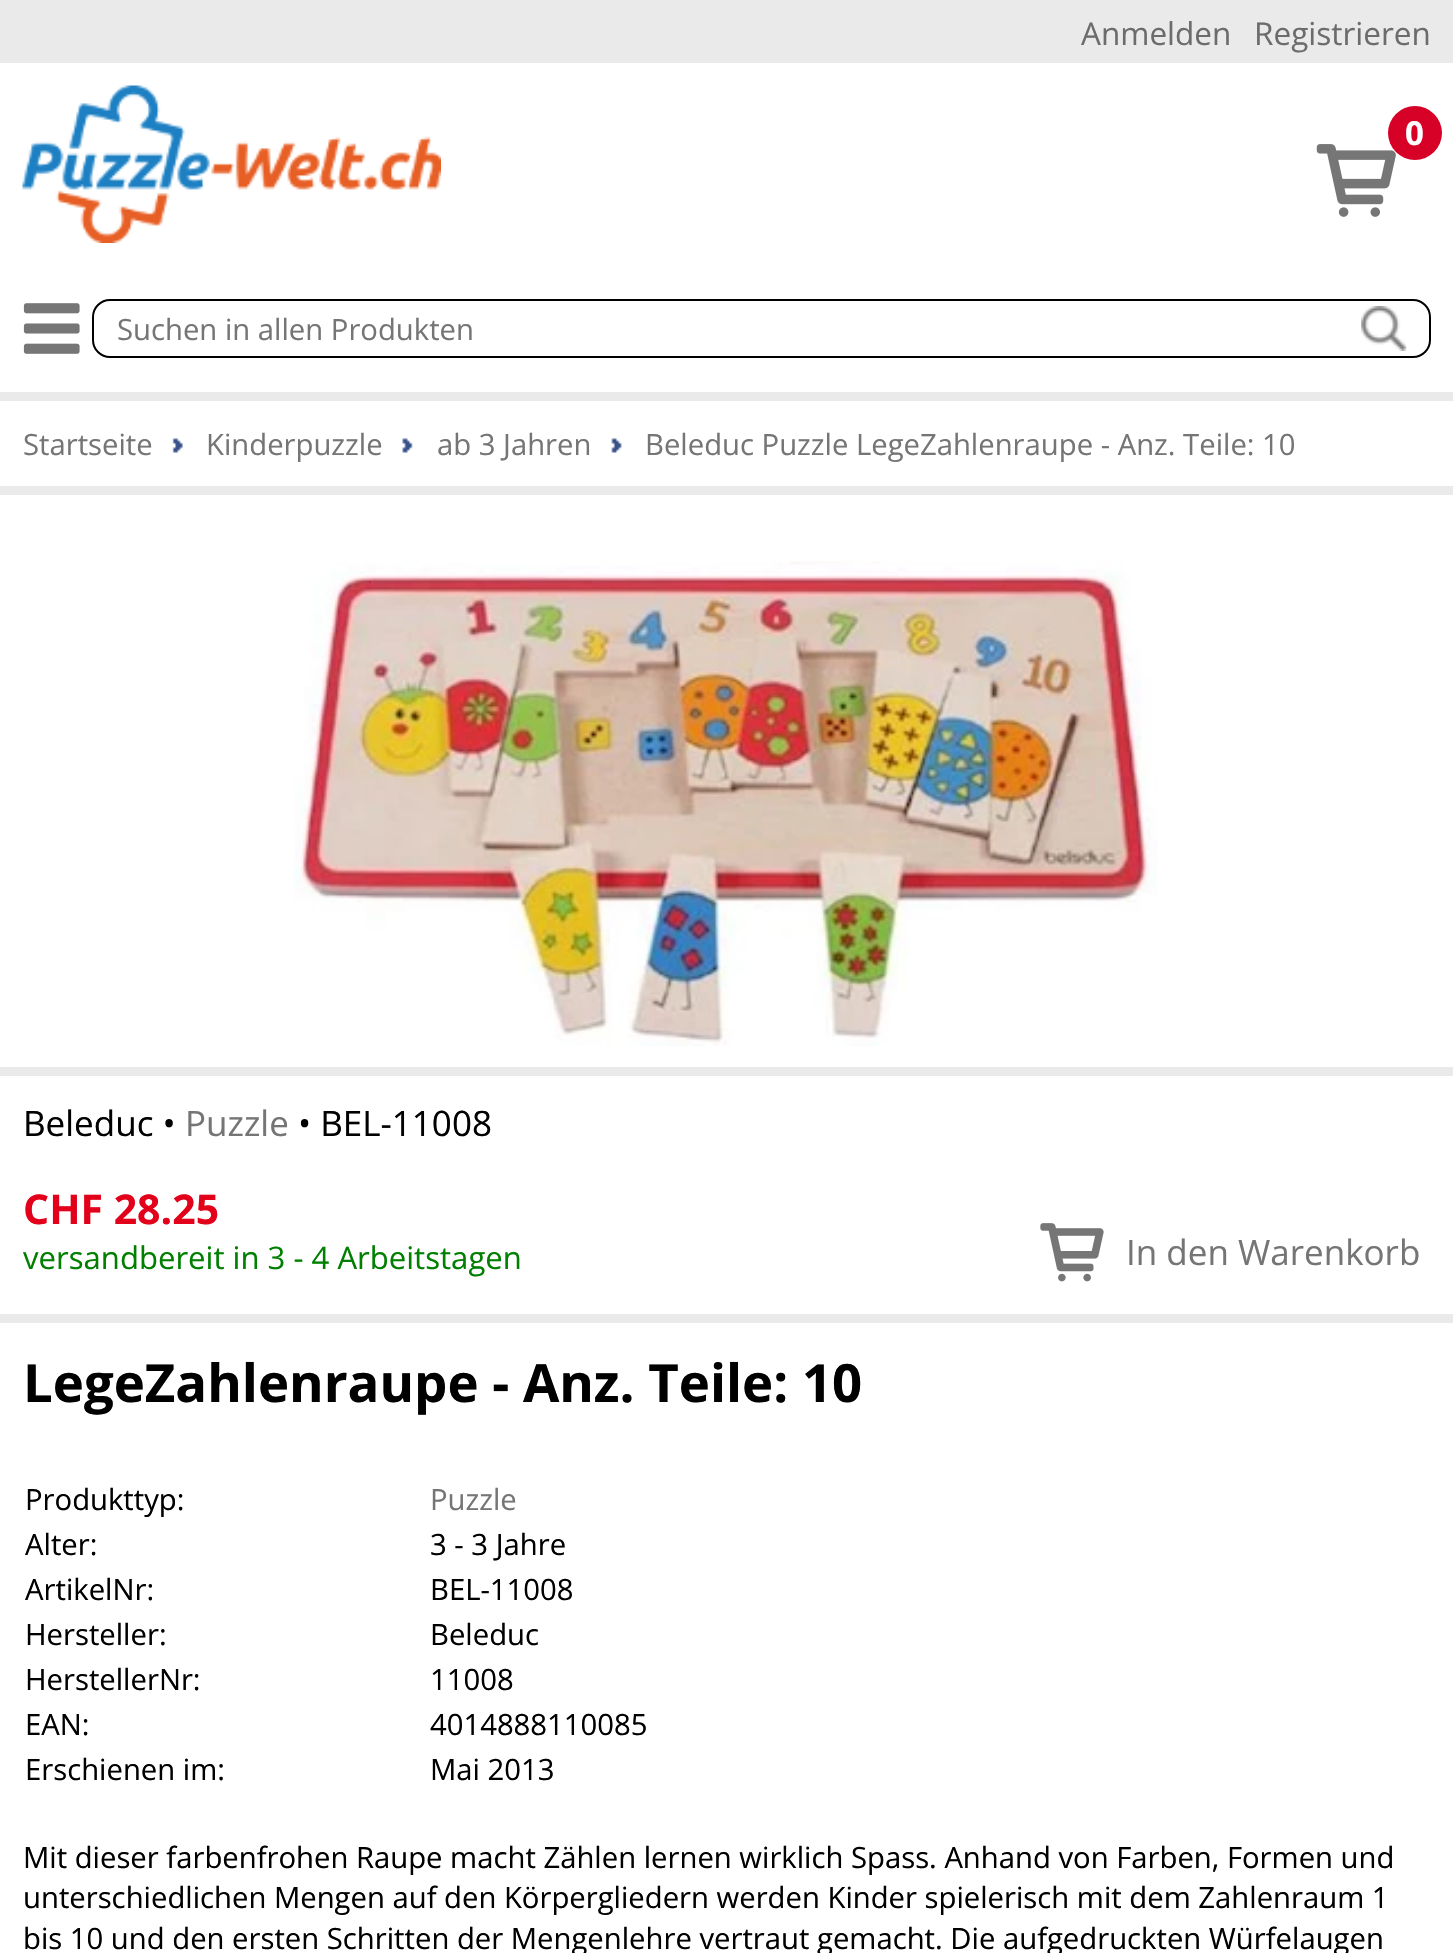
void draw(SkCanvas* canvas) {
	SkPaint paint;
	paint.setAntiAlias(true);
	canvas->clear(0xffeaeaea);
	SkFont f1(fontMgr->matchFamilyStyle("Open Sans", SkFontStyle::Normal()), 31.5);
	f1.setSubpixel(true);
	paint.setColor(0xff6c6c6c);
	canvas->drawString("Anmelden", 1081, 45, f1, paint);
	canvas->drawString("Registrieren", 1254, 45, f1, paint);
	paint.setColor(0xffffffff);
	canvas->drawRect(SkRect::MakeXYWH(0, 63, 1453, 329), paint);
	canvas->drawImageRect(SkImages::DeferredFromEncodedData(SkData::MakeFromFileName("img1.png")), SkRect::MakeXYWH(22, 85, 419, 158), SkSamplingOptions());
	canvas->drawImageRect(SkImages::DeferredFromEncodedData(SkData::MakeFromFileName("img2.png")), SkRect::MakeXYWH(1316, 144, 80, 73), SkSamplingOptions());
	paint.setColor(0xffd70026);
	canvas->drawCircle(1415, 133, 27, paint);
	SkFont f2(fontMgr->matchFamilyStyle("Open Sans", SkFontStyle::Bold()), 33);
	f2.setSubpixel(true);
	paint.setColor(0xffffffff);
	canvas->drawString("0", 1405, 145, f2, paint);
	canvas->drawImageRect(SkImages::DeferredFromEncodedData(SkData::MakeFromFileName("img3.png")), SkRect::MakeXYWH(23, 303, 57, 51), SkSamplingOptions());
	paint.setStroke(true);
	paint.setStrokeWidth(2);
	paint.setColor(0xff000000);
	canvas->drawRoundRect(SkRect::MakeXYWH(93, 300, 1337, 57), 17, 17, paint);
	SkFont f3(fontMgr->matchFamilyStyle("Open Sans", SkFontStyle::Normal()), 29.25);
	f3.setSubpixel(true);
	paint.setStroke(false);
	paint.setColor(0xff757575);
	canvas->drawString("Suchen in allen Produkten", 117, 340, f3, paint);
	canvas->drawImageRect(SkImages::DeferredFromEncodedData(SkData::MakeFromFileName("img4.png")), SkRect::MakeXYWH(1361, 306, 46, 45), SkSamplingOptions());
	paint.setColor(0xffffffff);
	canvas->drawRect(SkRect::MakeXYWH(0, 401, 1453, 85), paint);
	paint.setColor(0xff757575);
	canvas->drawString("Startseite", 23, 455, f3, paint);
	canvas->drawImageRect(SkImages::DeferredFromEncodedData(SkData::MakeFromFileName("img5.png")), SkRect::MakeXYWH(172, 438, 11, 15), SkSamplingOptions());
	canvas->drawString("Kinderpuzzle", 206, 455, f3, paint);
	canvas->drawImageRect(SkImages::DeferredFromEncodedData(SkData::MakeFromFileName("img6.png")), SkRect::MakeXYWH(402, 438, 11, 15), SkSamplingOptions());
	canvas->drawString("ab 3 Jahren", 437, 455, f3, paint);
	canvas->drawImageRect(SkImages::DeferredFromEncodedData(SkData::MakeFromFileName("img7.png")), SkRect::MakeXYWH(611, 438, 11, 15), SkSamplingOptions());
	canvas->drawString("Beleduc Puzzle LegeZahlenraupe - Anz. Teile: 10", 645, 455, f3, paint);
	paint.setColor(0xffffffff);
	canvas->drawRect(SkRect::MakeXYWH(0, 495, 1453, 572), paint);
	canvas->drawImageRect(SkImages::DeferredFromEncodedData(SkData::MakeFromFileName("img8.png")), SkRect::MakeXYWH(294, 561, 864, 485), SkSamplingOptions());
	canvas->drawRect(SkRect::MakeXYWH(0, 1076, 1453, 238), paint);
	SkFont f4(fontMgr->matchFamilyStyle("Open Sans", SkFontStyle::Normal()), 35);
	f4.setSubpixel(true);
	paint.setColor(0xff000000);
	canvas->drawString("Beleduc •", 23, 1136, f4, paint);
	paint.setColor(0xff757575);
	canvas->drawString("Puzzle", 185, 1136, f4, paint);
	paint.setColor(0xff000000);
	canvas->drawString("• BEL-11008", 298, 1136, f4, paint);
	SkFont f5(fontMgr->matchFamilyStyle("Open Sans", SkFontStyle::Bold()), 41);
	f5.setSubpixel(true);
	paint.setColor(0xffe2001a);
	canvas->drawString("CHF 28.25", 23, 1224, f5, paint);
	SkFont f6(fontMgr->matchFamilyStyle("Open Sans", SkFontStyle::Normal()), 31.1);
	f6.setSubpixel(true);
	paint.setColor(0xff007f00);
	canvas->drawString("versandbereit in 3 - 4 Arbeitstagen", 23, 1269, f6, paint);
	canvas->drawImageRect(SkImages::DeferredFromEncodedData(SkData::MakeFromFileName("img9.png")), SkRect::MakeXYWH(1040, 1223, 64, 59), SkSamplingOptions());
	paint.setColor(0xff757575);
	canvas->drawString("In den Warenkorb", 1126, 1265, f4, paint);
	paint.setColor(0xffffffff);
	canvas->drawRect(SkRect::MakeXYWH(0, 1323, 1453, 630), paint);
	SkFont f7(fontMgr->matchFamilyStyle("Open Sans", SkFontStyle::Bold()), 52.7);
	f7.setSubpixel(true);
	paint.setColor(0xff000000);
	canvas->drawString("LegeZahlenraupe - Anz. Teile: 10", 23, 1402, f7, paint);
	canvas->drawString("Produkttyp:", 25, 1510, f3, paint);
	paint.setColor(0xff757575);
	canvas->drawString("Puzzle", 430, 1510, f3, paint);
	paint.setColor(0xff000000);
	canvas->drawString("Alter:", 25, 1555, f3, paint);
	canvas->drawString("3 - 3 Jahre", 430, 1555, f3, paint);
	canvas->drawString("ArtikelNr:", 25, 1600, f3, paint);
	canvas->drawString("BEL-11008", 430, 1600, f3, paint);
	canvas->drawString("Hersteller:", 25, 1645, f3, paint);
	canvas->drawString("Beleduc", 430, 1645, f3, paint);
	canvas->drawString("HerstellerNr:", 25, 1690, f3, paint);
	canvas->drawString("11008", 430, 1690, f3, paint);
	canvas->drawString("EAN:", 25, 1735, f3, paint);
	canvas->drawString("4014888110085", 430, 1735, f3, paint);
	canvas->drawString("Erschienen im:", 25, 1780, f3, paint);
	canvas->drawString("Mai 2013", 430, 1780, f3, paint);
	canvas->drawString("Mit dieser farbenfrohen Raupe macht Zählen lernen wirklich Spass. Anhand von Farben, Formen und", 23, 1868, f3, paint);
	canvas->drawString("unterschiedlichen Mengen auf den Körpergliedern werden Kinder spielerisch mit dem Zahlenraum 1", 23, 1908, f3, paint);
	canvas->drawString("bis 10 und den ersten Schritten der Mengenlehre vertraut gemacht. Die aufgedruckten Würfelaugen", 23, 1949, f3, paint);
}
